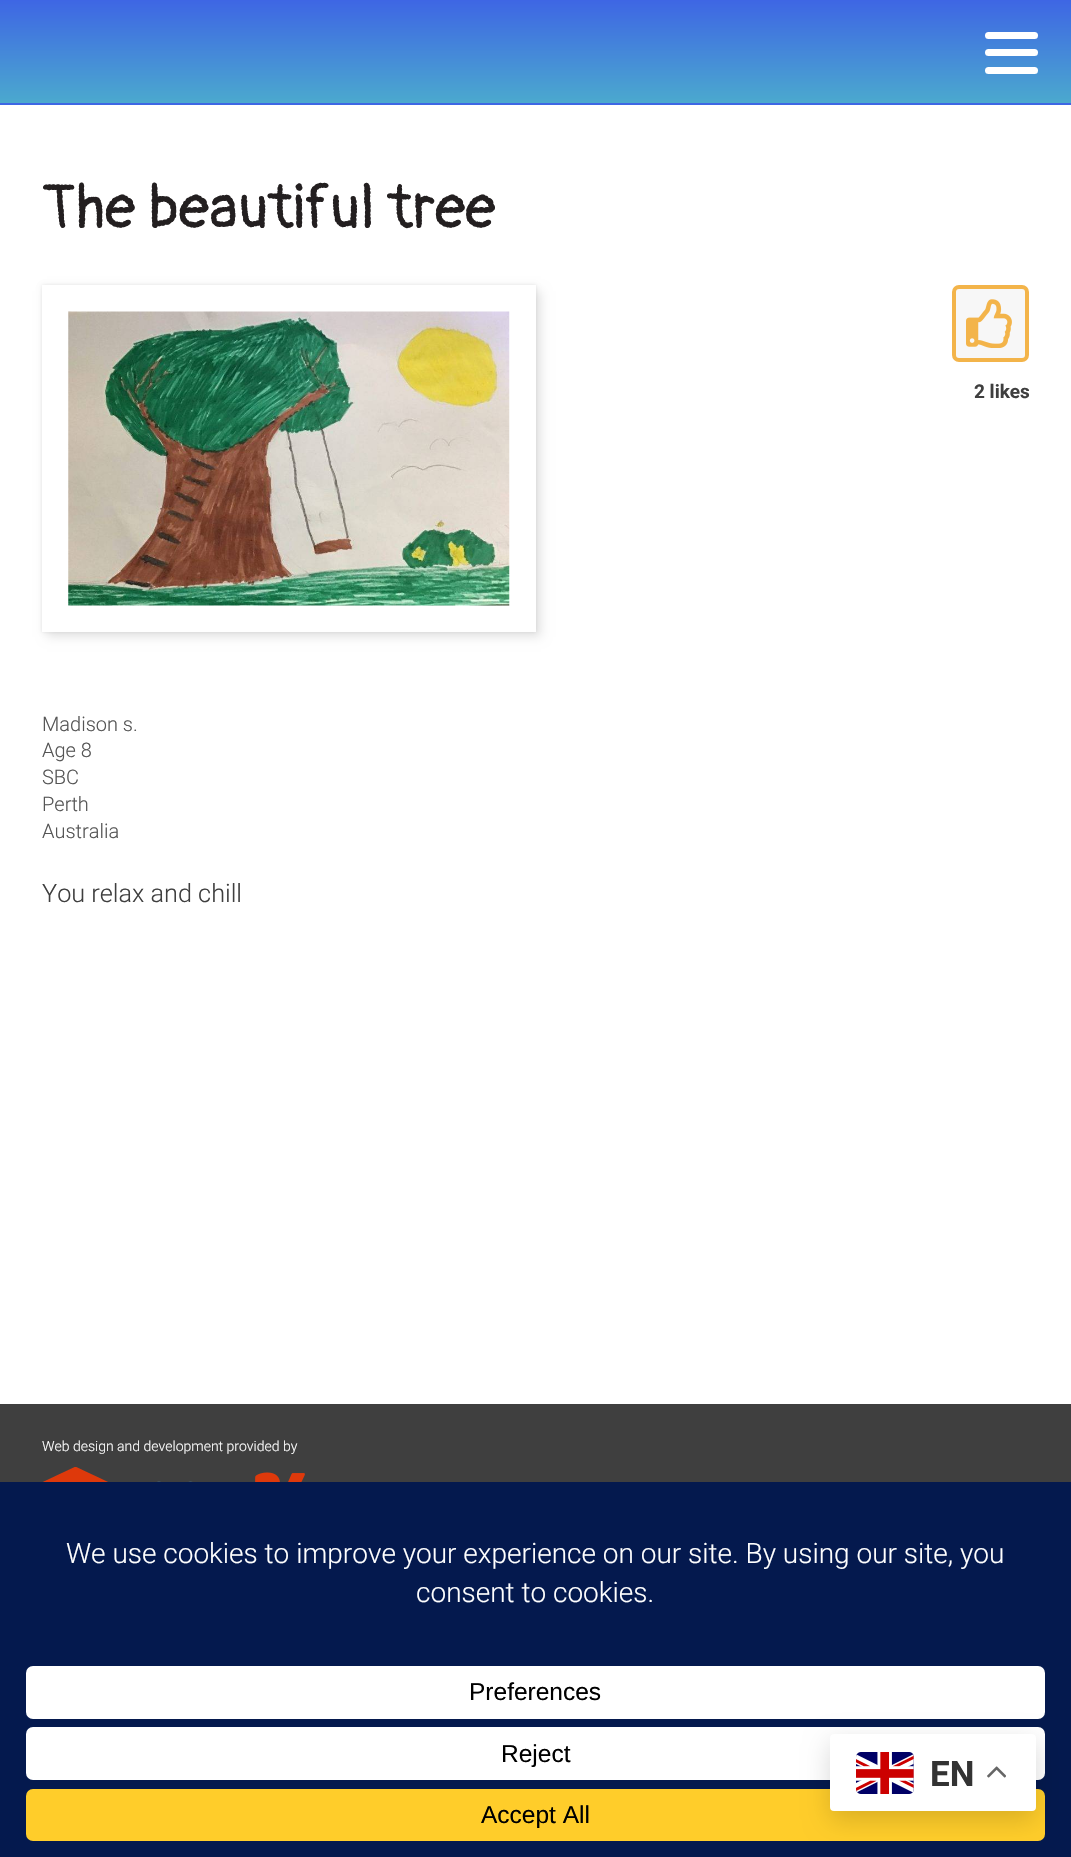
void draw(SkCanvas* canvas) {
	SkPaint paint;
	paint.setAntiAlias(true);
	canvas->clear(0xffffffff);
	{
		const SkColor colors[] = {0xff3e66e4, 0xff4ba9ce};
		const float stops[] = {0, 1};
		const SkPoint ends[] = {{536, 0}, {536, 103}};
		paint.setShader(SkGradientShader::MakeLinear(ends, colors, stops, 2, SkTileMode::kClamp));
		paint.setAlpha(255);
	}
	canvas->drawRect(SkRect::MakeXYWH(0, 0, 1071, 103), paint);
	{
		const SkColor colors[] = {0xff3e66e4, 0xff4ba9ce};
		const float stops[] = {0, 1};
		const SkPoint ends[] = {{536, 103}, {536, 207}};
		paint.setShader(SkGradientShader::MakeLinear(ends, colors, stops, 2, SkTileMode::kClamp));
		paint.setAlpha(255);
	}
	canvas->drawRect(SkRect::MakeXYWH(0, 103, 1071, 2), paint);
	paint.setShader(nullptr);
	paint.setColor(0xffffffff);
	canvas->drawRoundRect(SkRect::MakeXYWH(985, 67, 53, 7), 3.5, 3.5, paint);
	canvas->drawRoundRect(SkRect::MakeXYWH(985, 32, 53, 7), 3.5, 3.5, paint);
	canvas->drawRoundRect(SkRect::MakeXYWH(985, 49, 53, 7), 3.5, 3.5, paint);
	SkFont f1(fontMgr->matchFamilyStyle("Pangolin", SkFontStyle::Normal()), 61.5);
	f1.setSubpixel(true);
	paint.setColor(0xff231f20);
	canvas->drawString("The beautiful tree", 42, 228, f1, paint);
	paint.setColor(0x1a000000);
	paint.setMaskFilter(SkMaskFilter::MakeBlur(kNormal_SkBlurStyle, 5));
	canvas->drawRect(SkRect::MakeXYWH(47, 291, 494, 346), paint);
	paint.setMaskFilter(nullptr);
	paint.setMaskFilter(SkMaskFilter::MakeBlur(kNormal_SkBlurStyle, 2));
	canvas->drawRect(SkRect::MakeXYWH(42, 285, 494, 347), paint);
	paint.setMaskFilter(nullptr);
	paint.setColor(0xffffffff);
	canvas->drawRect(SkRect::MakeXYWH(42, 285, 494, 347), paint);
	canvas->drawImageRect(SkImages::DeferredFromEncodedData(SkData::MakeFromFileName("img1.png")), SkRect::MakeXYWH(68, 311, 442, 295), SkSamplingOptions());
	paint.setColor(0xfff7f7f7);
	canvas->drawRoundRect(SkRect::MakeXYWH(954, 287, 73, 73), 5, 5, paint);
	paint.setStroke(true);
	paint.setStrokeWidth(4);
	paint.setColor(0xfff3b44a);
	canvas->drawRoundRect(SkRect::MakeXYWH(954, 287, 73, 73), 5, 5, paint);
	canvas->drawImageRect(SkImages::DeferredFromEncodedData(SkData::MakeFromFileName("img2.png")), SkRect::MakeXYWH(966, 299, 46, 49), SkSamplingOptions());
	SkFont f2(fontMgr->matchFamilyStyle("Roboto", SkFontStyle::Bold()), 19);
	f2.setSubpixel(true);
	paint.setStroke(false);
	paint.setColor(0xff3f3f3f);
	canvas->drawString("2 likes", 974, 398, f2, paint);
	SkFont f3(fontMgr->matchFamilyStyle("Roboto", SkFontStyle(300, SkFontStyle::kNormal_Width, SkFontStyle::kUpright_Slant)), 20);
	f3.setSubpixel(true);
	paint.setColor(0xff555555);
	canvas->drawString("Madison s.", 42, 731, f3, paint);
	canvas->drawString("Age 8", 42, 757, f3, paint);
	canvas->drawString("SBC", 42, 784, f3, paint);
	canvas->drawString("Perth", 42, 811, f3, paint);
	canvas->drawString("Australia", 42, 838, f3, paint);
	SkFont f4(fontMgr->matchFamilyStyle("Roboto", SkFontStyle(300, SkFontStyle::kNormal_Width, SkFontStyle::kUpright_Slant)), 25.25);
	f4.setSubpixel(true);
	paint.setColor(0xff3f3f3f);
	canvas->drawString("You relax and chill", 42, 902, f4, paint);
	canvas->drawRect(SkRect::MakeXYWH(0, 1404, 1071, 78), paint);
	SkFont f5(fontMgr->matchFamilyStyle("Roboto", SkFontStyle(300, SkFontStyle::kNormal_Width, SkFontStyle::kUpright_Slant)), 14);
	f5.setSubpixel(true);
	paint.setColor(0xffffffff);
	canvas->drawString("Web design and development provided by", 42, 1451, f5, paint);
	canvas->drawImageRect(SkImages::DeferredFromEncodedData(SkData::MakeFromFileName("img3.png")), SkRect::MakeXYWH(42, 1467, 263, 15), SkSamplingOptions());
	paint.setColor(0xff04194e);
	canvas->drawRect(SkRect::MakeXYWH(0, 1482, 1071, 375), paint);
	SkFont f6(fontMgr->matchFamilyStyle("Roboto", SkFontStyle(300, SkFontStyle::kNormal_Width, SkFontStyle::kUpright_Slant)), 28);
	f6.setSubpixel(true);
	paint.setColor(0xffffffff);
	canvas->drawString("We use cookies to improve your experience on our site. By using our site, you", 66, 1563, f6, paint);
	canvas->drawString("consent to cookies.", 416, 1602, f6, paint);
	canvas->drawRoundRect(SkRect::MakeXYWH(26, 1666, 1019, 53), 7, 7, paint);
	SkFont f7(fontMgr->matchFamilyStyle("Liberation Sans", SkFontStyle::Normal()), 24.5);
	f7.setSubpixel(true);
	paint.setColor(0xff000000);
	canvas->drawString("Preferences", 469, 1700, f7, paint);
	paint.setColor(0xffffffff);
	canvas->drawRoundRect(SkRect::MakeXYWH(26, 1727, 1019, 53), 7, 7, paint);
	paint.setColor(0xff000000);
	canvas->drawString("Reject", 501, 1762, f7, paint);
	paint.setColor(0xffffcd2a);
	canvas->drawRoundRect(SkRect::MakeXYWH(26, 1789, 1019, 52), 7, 7, paint);
	paint.setColor(0xff000000);
	canvas->drawString("Accept All", 481, 1823, f7, paint);
	paint.setColor(0x26000000);
	paint.setMaskFilter(SkMaskFilter::MakeBlur(kNormal_SkBlurStyle, 13));
	canvas->drawRoundRect(SkRect::MakeXYWH(830, 1743, 206, 77), 4, 4, paint);
	paint.setMaskFilter(nullptr);
	paint.setColor(0xffffffff);
	canvas->drawRoundRect(SkRect::MakeXYWH(830, 1734, 206, 77), 4, 4, paint);
	canvas->drawImageRect(SkImages::DeferredFromEncodedData(SkData::MakeFromFileName("img4.png")), SkRect::MakeXYWH(856, 1752, 58, 42), SkSamplingOptions());
	SkFont f8(fontMgr->matchFamilyStyle("Roboto", SkFontStyle::Bold()), 35);
	f8.setSubpixel(true);
	paint.setColor(0xff333333);
	canvas->drawString("EN", 930, 1786, f8, paint);
	canvas->drawImageRect(SkImages::DeferredFromEncodedData(SkData::MakeFromFileName("img5.png")), SkRect::MakeXYWH(987, 1766, 19, 12), SkSamplingOptions());
}
